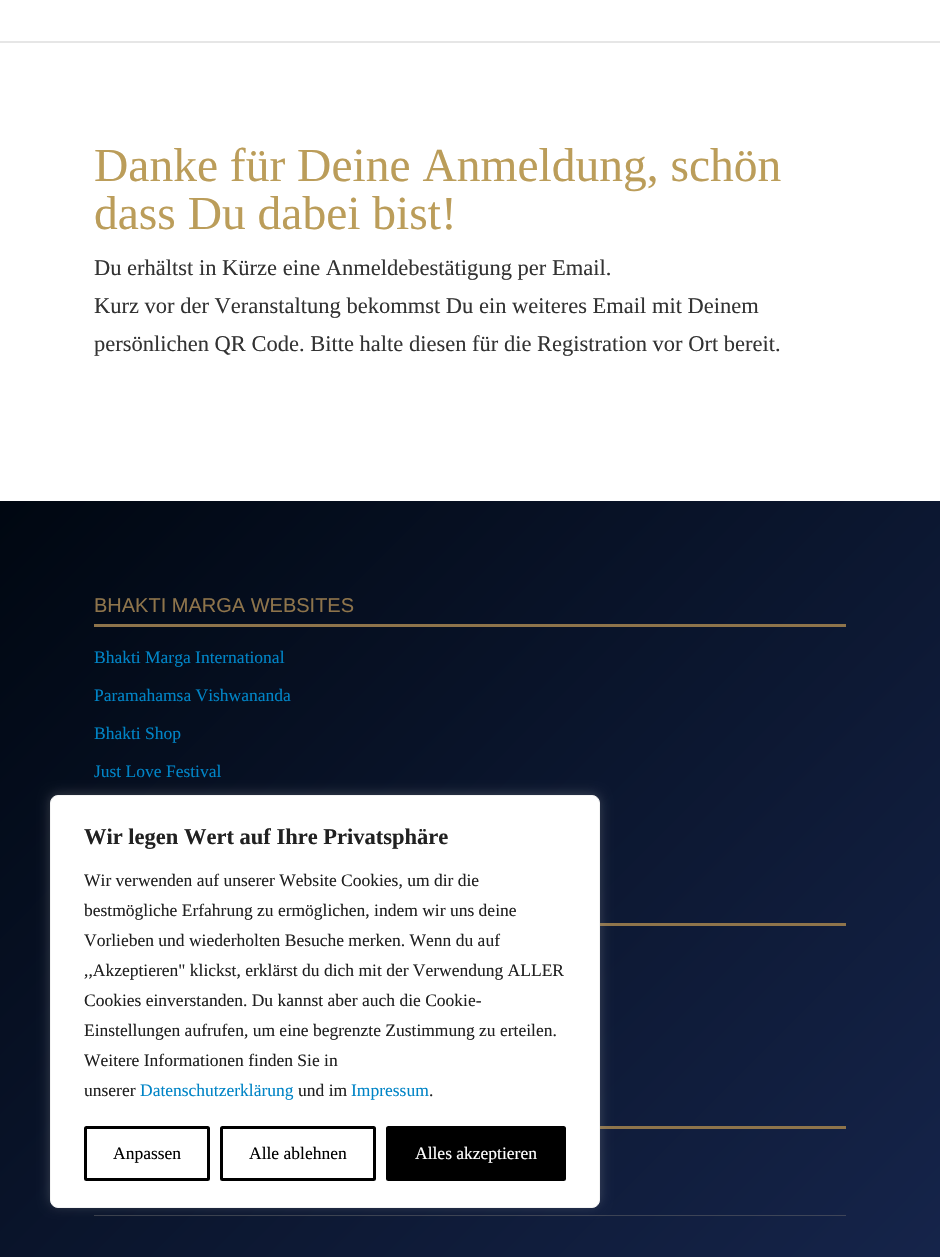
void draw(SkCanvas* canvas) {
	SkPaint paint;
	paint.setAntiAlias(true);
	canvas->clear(0xffffffff);
	paint.setColor(0xffe6e6e6);
	canvas->drawRect(SkRect::MakeXYWH(0, 41, 940, 2), paint);
	SkFont f1(fontMgr->matchFamilyStyle("Liberation Serif", SkFontStyle::Normal()), 47.5);
	f1.setSubpixel(true);
	paint.setColor(0xffbb9d5a);
	canvas->drawString("Danke für Deine Anmeldung, schön", 94, 181, f1, paint);
	canvas->drawString("dass Du dabei bist!", 94, 229, f1, paint);
	SkFont f2(fontMgr->matchFamilyStyle("Liberation Serif", SkFontStyle::Normal()), 22.5);
	f2.setSubpixel(true);
	paint.setColor(0xff333333);
	canvas->drawString("Du erhältst in Kürze eine Anmeldebestätigung per Email.", 94, 275, f2, paint);
	canvas->drawString("Kurz vor der Veranstaltung bekommst Du ein weiteres Email mit Deinem", 94, 313, f2, paint);
	canvas->drawString("persönlichen QR Code. Bitte halte diesen für die Registration vor Ort bereit.", 94, 351, f2, paint);
	{
		const SkColor colors[] = {0xff16254c, 0xff000711};
		const float stops[] = {0, 1};
		const SkPoint ends[] = {{908, 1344}, {32, 469}};
		paint.setShader(SkGradientShader::MakeLinear(ends, colors, stops, 2, SkTileMode::kClamp));
		paint.setAlpha(255);
	}
	canvas->drawRect(SkRect::MakeXYWH(0, 501, 940, 756), paint);
	{
		const SkColor colors[] = {0xff3f475c, 0xff33373c};
		const float stops[] = {0, 1};
		const SkPoint ends[] = {{908, 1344}, {32, 469}};
		paint.setShader(SkGradientShader::MakeLinear(ends, colors, stops, 2, SkTileMode::kClamp));
		paint.setAlpha(255);
	}
	canvas->drawRect(SkRect::MakeXYWH(94, 1215, 752, 1), paint);
	paint.setShader(nullptr);
	paint.setColor(0xff8e744b);
	canvas->drawRect(SkRect::MakeXYWH(94, 624, 752, 3), paint);
	SkFont f3(fontMgr->matchFamilyStyle("Liberation Sans", SkFontStyle::Normal()), 20);
	f3.setSubpixel(true);
	canvas->drawString("BHAKTI MARGA WEBSITES", 94, 612, f3, paint);
	SkFont f4(fontMgr->matchFamilyStyle("Liberation Serif", SkFontStyle::Normal()), 17.5);
	f4.setSubpixel(true);
	paint.setColor(0xff0084c6);
	canvas->drawString("Bhakti Marga International", 94, 663, f4, paint);
	canvas->drawString("Paramahamsa Vishwananda", 94, 701, f4, paint);
	canvas->drawString("Bhakti Shop", 94, 739, f4, paint);
	canvas->drawString("Just Love Festival", 94, 777, f4, paint);
	paint.setColor(0xff8e744b);
	canvas->drawRect(SkRect::MakeXYWH(600, 923, 246, 3), paint);
	canvas->drawRect(SkRect::MakeXYWH(600, 1126, 246, 3), paint);
	paint.setColor(0x4dacabab);
	paint.setMaskFilter(SkMaskFilter::MakeBlur(kNormal_SkBlurStyle, 6));
	canvas->drawRoundRect(SkRect::MakeXYWH(50, 794, 550, 412), 8, 8, paint);
	paint.setMaskFilter(nullptr);
	paint.setColor(0xffffffff);
	canvas->drawRoundRect(SkRect::MakeXYWH(50.5, 795.5, 549, 412), 7.5, 7.5, paint);
	paint.setStroke(true);
	paint.setStrokeWidth(1);
	paint.setColor(0xfff4f4f4);
	canvas->drawRoundRect(SkRect::MakeXYWH(50.5, 795.5, 549, 412), 7.5, 7.5, paint);
	SkFont f5(fontMgr->matchFamilyStyle("Liberation Serif", SkFontStyle::Bold()), 22.5);
	f5.setSubpixel(true);
	paint.setStroke(false);
	paint.setColor(0xff212121);
	canvas->drawString("Wir legen Wert auf Ihre Privatsphäre", 84, 844, f5, paint);
	canvas->drawString("Wir verwenden auf unserer Website Cookies, um dir die", 84, 886, f4, paint);
	canvas->drawString("bestmögliche Erfahrung zu ermöglichen, indem wir uns deine", 84, 916, f4, paint);
	canvas->drawString("Vorlieben und wiederholten Besuche merken. Wenn du auf", 84, 946, f4, paint);
	canvas->drawString(",,Akzeptieren\" klickst, erklärst du dich mit der Verwendung ALLER", 84, 976, f4, paint);
	canvas->drawString("Cookies einverstanden. Du kannst aber auch die Cookie-", 84, 1006, f4, paint);
	canvas->drawString("Einstellungen aufrufen, um eine begrenzte Zustimmung zu erteilen.", 84, 1036, f4, paint);
	canvas->drawString("Weitere Informationen finden Sie in", 84, 1066, f4, paint);
	canvas->drawString("unserer", 84, 1096, f4, paint);
	paint.setColor(0xff0084c6);
	canvas->drawString("Datenschutzerklärung", 140, 1096, f4, paint);
	paint.setColor(0xff212121);
	canvas->drawString("und im", 298, 1096, f4, paint);
	paint.setColor(0xff0084c6);
	canvas->drawString("Impressum", 351, 1096, f4, paint);
	paint.setColor(0xff212121);
	canvas->drawString(".", 429, 1096, f4, paint);
	paint.setStroke(true);
	paint.setStrokeWidth(3);
	paint.setColor(0xff000000);
	canvas->drawRoundRect(SkRect::MakeXYWH(85.5, 1127.5, 123, 52), 1, 1, paint);
	paint.setStroke(false);
	canvas->drawString("Anpassen", 113, 1159, f4, paint);
	paint.setStroke(true);
	canvas->drawRoundRect(SkRect::MakeXYWH(221.5, 1127.5, 153, 52), 1, 1, paint);
	paint.setStroke(false);
	canvas->drawString("Alle ablehnen", 249, 1159, f4, paint);
	canvas->drawRoundRect(SkRect::MakeXYWH(387.5, 1127.5, 177, 52), 1, 1, paint);
	paint.setStroke(true);
	canvas->drawRoundRect(SkRect::MakeXYWH(387.5, 1127.5, 177, 52), 1, 1, paint);
	paint.setStroke(false);
	paint.setColor(0xffffffff);
	canvas->drawString("Alles akzeptieren", 415, 1159, f4, paint);
}
